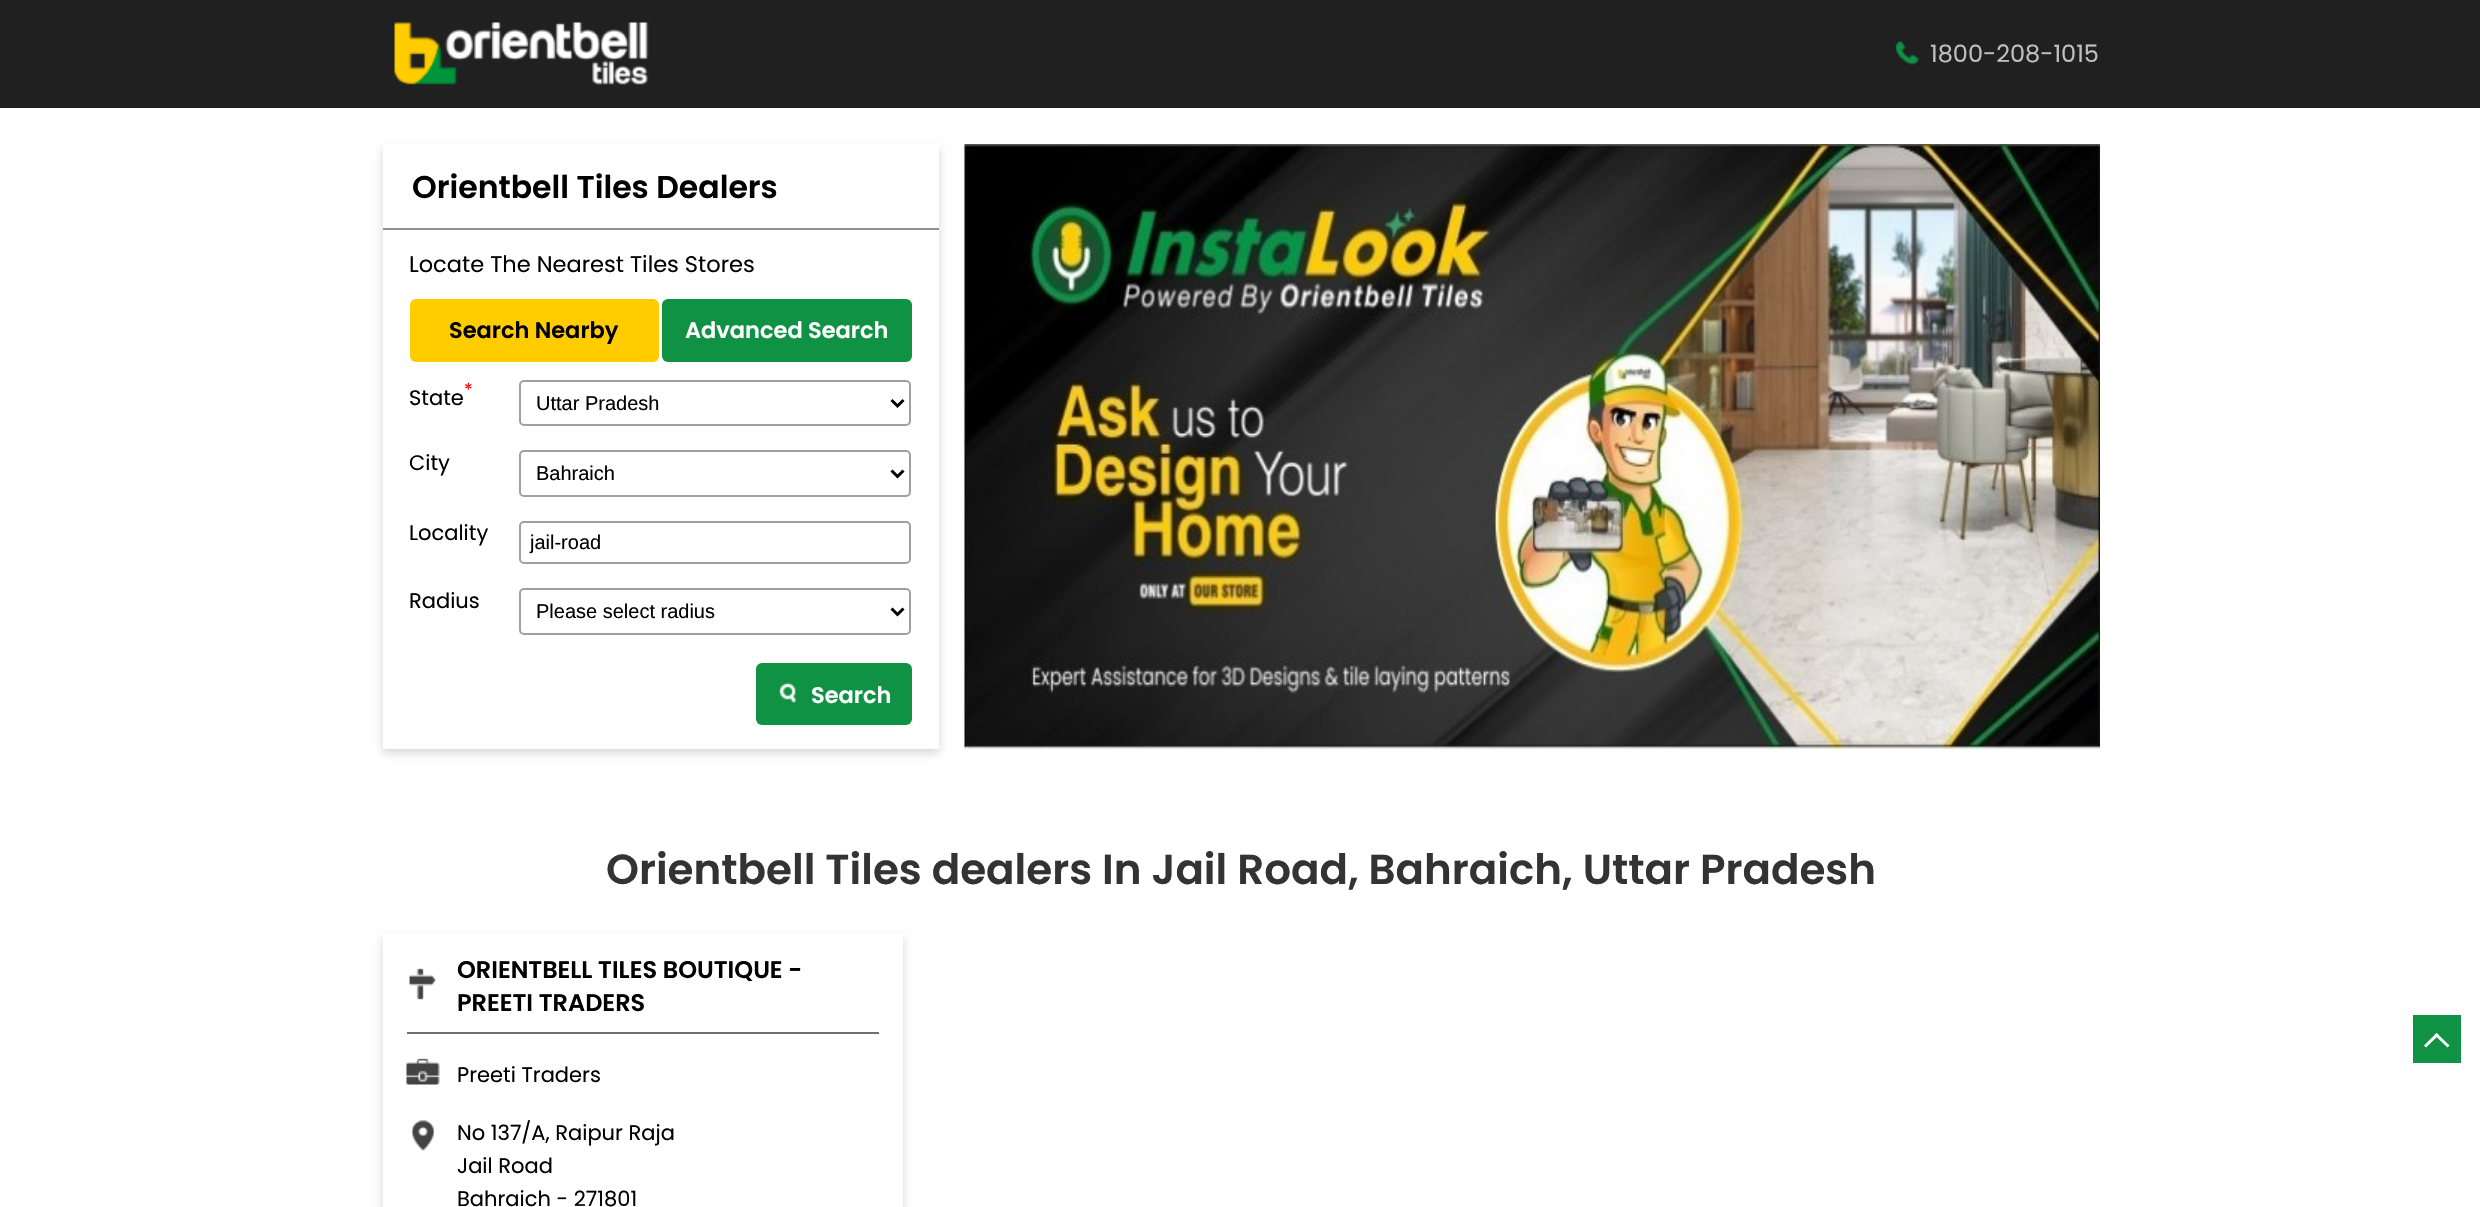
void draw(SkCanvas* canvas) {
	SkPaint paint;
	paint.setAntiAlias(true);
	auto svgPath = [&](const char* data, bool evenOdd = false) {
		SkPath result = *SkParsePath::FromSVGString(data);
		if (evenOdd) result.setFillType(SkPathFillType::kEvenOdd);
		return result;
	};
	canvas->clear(0xffffffff);
	paint.setColor(0xff202020);
	canvas->drawRect(SkRect::MakeXYWH(0, 0, 2480, 108), paint);
	canvas->drawImageRect(SkImages::DeferredFromEncodedData(SkData::MakeFromFileName("img1.png")), SkRect::MakeXYWH(394, 22, 255, 63), SkSamplingOptions());
	canvas->drawImageRect(SkImages::DeferredFromEncodedData(SkData::MakeFromFileName("img2.png")), SkRect::MakeXYWH(1895, 40, 24, 25), SkSamplingOptions());
	SkFont f1(fontMgr->matchFamilyStyle("Poppins", SkFontStyle::Normal()), 24);
	f1.setSubpixel(true);
	paint.setColor(0xffbfbfbf);
	canvas->drawString("1800-208-1015", 1930, 62, f1, paint);
	paint.setColor(0x29000000);
	paint.setMaskFilter(SkMaskFilter::MakeBlur(kNormal_SkBlurStyle, 4.5));
	canvas->drawRect(SkRect::MakeXYWH(383, 149, 556, 604), paint);
	paint.setMaskFilter(nullptr);
	paint.setColor(0xffffffff);
	canvas->drawRect(SkRect::MakeXYWH(383, 144, 556, 605), paint);
	paint.setColor(0xff8f8f8f);
	canvas->drawRect(SkRect::MakeXYWH(383, 228, 556, 2), paint);
	SkFont f2(fontMgr->matchFamilyStyle("Poppins", SkFontStyle(600, SkFontStyle::kNormal_Width, SkFontStyle::kUpright_Slant)), 31.5);
	f2.setSubpixel(true);
	paint.setColor(0xff000000);
	canvas->drawString("Orientbell Tiles Dealers", 412, 198, f2, paint);
	SkFont f3(fontMgr->matchFamilyStyle("Poppins", SkFontStyle::Normal()), 22.5);
	f3.setSubpixel(true);
	canvas->drawString("Locate The Nearest Tiles Stores", 409, 272, f3, paint);
	paint.setColor(0xffffcc00);
	canvas->drawRoundRect(SkRect::MakeXYWH(410, 299, 249, 63), 6, 6, paint);
	SkFont f4(fontMgr->matchFamilyStyle("Poppins", SkFontStyle(600, SkFontStyle::kNormal_Width, SkFontStyle::kUpright_Slant)), 22.5);
	f4.setSubpixel(true);
	paint.setColor(0xff000000);
	canvas->drawString("Search Nearby", 449, 338, f4, paint);
	paint.setColor(0xff0f9243);
	canvas->drawRoundRect(SkRect::MakeXYWH(662, 299, 250, 63), 6, 6, paint);
	paint.setColor(0xffffffff);
	canvas->drawString("Advanced Search", 685, 338, f4, paint);
	SkFont f5(fontMgr->matchFamilyStyle("Poppins", SkFontStyle::Normal()), 18);
	f5.setSubpixel(true);
	paint.setColor(0xffff0000);
	canvas->drawString("*", 464, 396, f5, paint);
	SkFont f6(fontMgr->matchFamilyStyle("Poppins", SkFontStyle::Normal()), 21);
	f6.setSubpixel(true);
	paint.setColor(0xff000000);
	canvas->drawString("State", 409, 405, f6, paint);
	paint.setStroke(true);
	paint.setStrokeWidth(2);
	paint.setColor(0xffa0a0a0);
	canvas->drawRoundRect(SkRect::MakeXYWH(520, 381, 390, 44), 4, 4, paint);
	paint.setStrokeWidth(3);
	paint.setColor(0xff000000);
	canvas->drawPath(svgPath("M891.5 400L897.5 406L903.5 400"), paint);
	SkFont f7(fontMgr->matchFamilyStyle("Liberation Sans", SkFontStyle::Normal()), 20);
	f7.setSubpixel(true);
	paint.setStroke(false);
	canvas->drawString("Uttar Pradesh", 536, 410, f7, paint);
	canvas->drawString("City", 409, 470, f6, paint);
	paint.setStroke(true);
	paint.setStrokeWidth(2);
	paint.setColor(0xffa0a0a0);
	canvas->drawRoundRect(SkRect::MakeXYWH(520, 451, 390, 45), 4, 4, paint);
	paint.setStrokeWidth(3);
	paint.setColor(0xff000000);
	canvas->drawPath(svgPath("M891.5 470.5L897.5 476.5L903.5 470.5"), paint);
	paint.setStroke(false);
	canvas->drawString("Bahraich", 536, 480, f7, paint);
	canvas->drawString("Locality", 409, 540, f6, paint);
	paint.setStroke(true);
	paint.setStrokeWidth(2);
	paint.setColor(0xffa0a0a0);
	canvas->drawRoundRect(SkRect::MakeXYWH(520, 522, 390, 41), 4, 4, paint);
	paint.setStroke(false);
	paint.setColor(0xff000000);
	canvas->drawString("jail-road", 530, 549, f7, paint);
	canvas->drawString("Radius", 409, 608, f6, paint);
	paint.setStroke(true);
	paint.setColor(0xffa0a0a0);
	canvas->drawRoundRect(SkRect::MakeXYWH(520, 589, 390, 45), 4, 4, paint);
	paint.setStrokeWidth(3);
	paint.setColor(0xff000000);
	canvas->drawPath(svgPath("M891.5 608.5L897.5 614.5L903.5 608.5"), paint);
	paint.setStroke(false);
	canvas->drawString("Please select radius", 536, 618, f7, paint);
	paint.setColor(0xff0f9243);
	canvas->drawRoundRect(SkRect::MakeXYWH(756, 663, 156, 62), 6, 6, paint);
	canvas->drawImageRect(SkImages::DeferredFromEncodedData(SkData::MakeFromFileName("img3.png")), SkRect::MakeXYWH(779, 682, 18, 21), SkSamplingOptions());
	paint.setColor(0xffffffff);
	canvas->drawString("Search", 811, 703, f4, paint);
	canvas->drawImageRect(SkImages::DeferredFromEncodedData(SkData::MakeFromFileName("img4.png")), SkRect::MakeXYWH(963, 144, 1137, 605), SkSamplingOptions());
	SkFont f8(fontMgr->matchFamilyStyle("Poppins", SkFontStyle(600, SkFontStyle::kNormal_Width, SkFontStyle::kUpright_Slant)), 42);
	f8.setSubpixel(true);
	paint.setColor(0xff333333);
	canvas->drawString("Orientbell Tiles dealers In Jail Road, Bahraich, Uttar Pradesh", 606, 884, f8, paint);
	canvas->save();
	canvas->clipPath(svgPath("M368 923H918V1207H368ZM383 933H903V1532H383Z", true), true);
	paint.setColor(0x29000000);
	paint.setMaskFilter(SkMaskFilter::MakeBlur(kNormal_SkBlurStyle, 4.5));
	canvas->drawRect(SkRect::MakeXYWH(383, 938, 520, 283), paint);
	paint.setMaskFilter(nullptr);
	canvas->restore();
	paint.setColor(0xff707070);
	canvas->drawRect(SkRect::MakeXYWH(407, 1032, 472, 2), paint);
	canvas->drawImageRect(SkImages::DeferredFromEncodedData(SkData::MakeFromFileName("img5.png")), SkRect::MakeXYWH(409, 968, 27, 32), SkSamplingOptions());
	SkFont f9(fontMgr->matchFamilyStyle("Poppins", SkFontStyle(600, SkFontStyle::kNormal_Width, SkFontStyle::kUpright_Slant)), 24);
	f9.setSubpixel(true);
	paint.setColor(0xff000000);
	canvas->drawString("ORIENTBELL TILES BOUTIQUE -", 457, 978, f9, paint);
	canvas->drawString("PREETI TRADERS", 457, 1011, f9, paint);
	canvas->drawImageRect(SkImages::DeferredFromEncodedData(SkData::MakeFromFileName("img6.png")), SkRect::MakeXYWH(406, 1058, 34, 27), SkSamplingOptions());
	canvas->drawString("Preeti Traders", 457, 1082, f6, paint);
	canvas->drawImageRect(SkImages::DeferredFromEncodedData(SkData::MakeFromFileName("img7.png")), SkRect::MakeXYWH(411, 1120, 24, 31), SkSamplingOptions());
	canvas->drawString("No 137/A, Raipur Raja", 457, 1140, f6, paint);
	canvas->drawString("Jail Road", 457, 1173, f6, paint);
	canvas->drawString("Bahraich - 271801", 457, 1206, f6, paint);
	paint.setColor(0xff0f9243);
	canvas->drawRect(SkRect::MakeXYWH(2413, 1015, 48, 48), paint);
	paint.setColor(0xffffffff);
	canvas->drawPath(svgPath("M2426 1047.5L2424 1045.5L2436.5 1033L2439 1035Z"), paint);
	canvas->drawPath(svgPath("M2447.5 1047.5L2434.5 1035L2436.5 1033L2449.5 1045.5Z"), paint);
}
